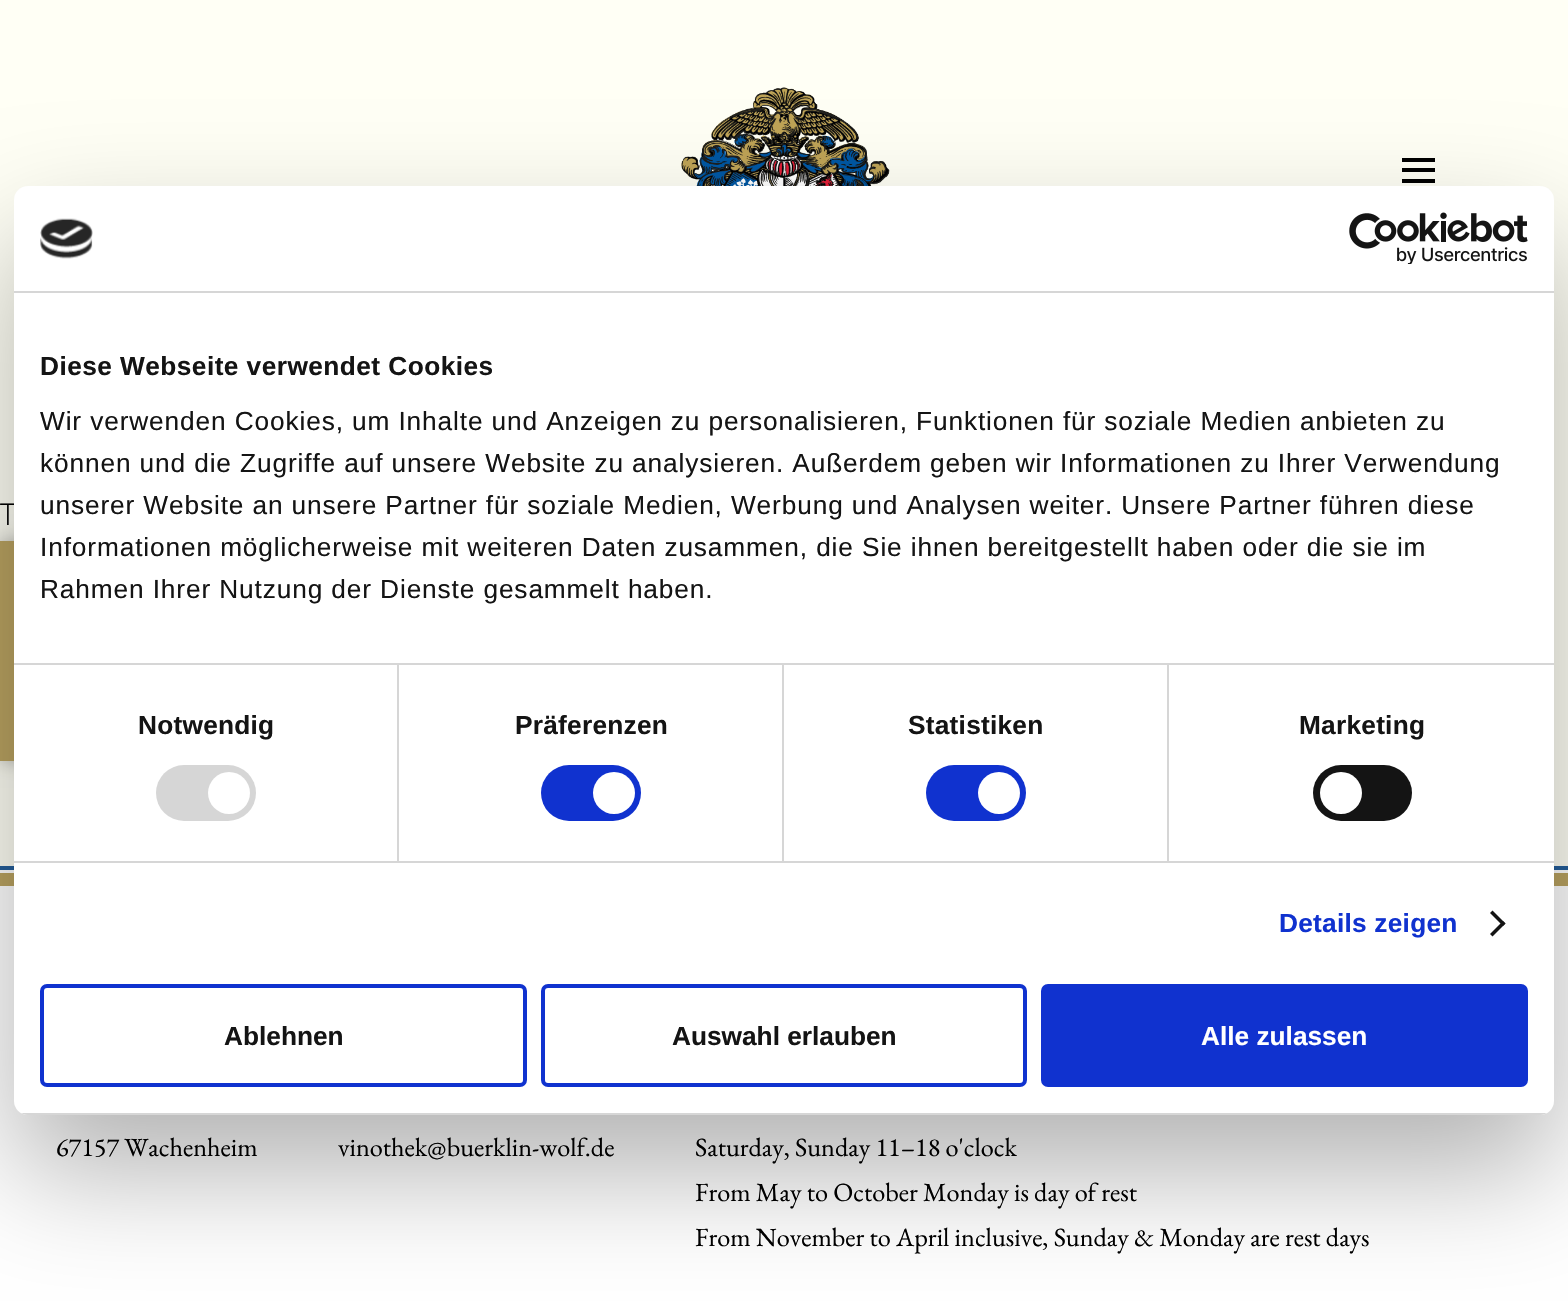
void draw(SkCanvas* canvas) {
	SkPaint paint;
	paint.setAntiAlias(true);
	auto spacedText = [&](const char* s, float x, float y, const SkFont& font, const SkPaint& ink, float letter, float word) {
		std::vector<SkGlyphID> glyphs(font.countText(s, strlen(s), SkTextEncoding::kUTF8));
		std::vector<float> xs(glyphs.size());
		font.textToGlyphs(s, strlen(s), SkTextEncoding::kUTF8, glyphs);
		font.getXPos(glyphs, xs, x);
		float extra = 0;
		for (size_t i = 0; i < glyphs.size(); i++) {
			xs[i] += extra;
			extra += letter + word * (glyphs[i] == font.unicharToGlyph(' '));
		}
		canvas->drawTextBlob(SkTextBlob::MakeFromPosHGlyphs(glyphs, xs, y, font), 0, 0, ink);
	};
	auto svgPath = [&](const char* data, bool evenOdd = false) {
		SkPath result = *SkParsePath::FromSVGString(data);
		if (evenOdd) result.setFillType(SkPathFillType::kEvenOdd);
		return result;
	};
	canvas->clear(0xfffffff5);
	canvas->drawImageRect(SkImages::DeferredFromEncodedData(SkData::MakeFromFileName("img1.png")), SkRect::MakeXYWH(681, 87, 209, 99), SkSamplingOptions());
	paint.setColor(0xff000000);
	canvas->drawRect(SkRect::MakeXYWH(1402, 158, 33, 4), paint);
	canvas->drawRect(SkRect::MakeXYWH(1402, 179, 33, 4), paint);
	canvas->drawRect(SkRect::MakeXYWH(1402, 168, 33, 4), paint);
	SkFont f1(fontMgr->matchFamilyStyle("Open Sans", SkFontStyle(300, SkFontStyle::kNormal_Width, SkFontStyle::kUpright_Slant)), 30);
	f1.setSubpixel(true);
	canvas->drawString("T", 0, 525, f1, paint);
	paint.setColor(0x4d000000);
	paint.setMaskFilter(SkMaskFilter::MakeBlur(kNormal_SkBlurStyle, 9));
	canvas->drawRect(SkRect::MakeXYWH(0, 541, 58, 220), paint);
	paint.setMaskFilter(nullptr);
	paint.setColor(0xffbaa361);
	canvas->drawRect(SkRect::MakeXYWH(0, 541, 14, 220), paint);
	paint.setColor(0xffffffff);
	canvas->drawRect(SkRect::MakeXYWH(0, 870, 1568, 431), paint);
	paint.setColor(0xff245e9a);
	canvas->drawRect(SkRect::MakeXYWH(0, 866, 1568, 4), paint);
	paint.setColor(0xffbaa361);
	canvas->drawRect(SkRect::MakeXYWH(0, 873, 1568, 13), paint);
	paint.setColor(0x4d000000);
	paint.setMaskFilter(SkMaskFilter::MakeBlur(kNormal_SkBlurStyle, 59.5));
	canvas->drawRoundRect(SkRect::MakeXYWH(14, 242, 1540, 929), 14, 14, paint);
	paint.setMaskFilter(nullptr);
	paint.setColor(0xffffffff);
	canvas->drawRoundRect(SkRect::MakeXYWH(14, 186, 1540, 929), 14, 14, paint);
	paint.setColor(0xffd6d6d6);
	canvas->drawRect(SkRect::MakeXYWH(14, 291, 1540, 2), paint);
	canvas->drawImageRect(SkImages::DeferredFromEncodedData(SkData::MakeFromFileName("img2.png")), SkRect::MakeXYWH(40, 218, 53, 41), SkSamplingOptions());
	canvas->drawImageRect(SkImages::DeferredFromEncodedData(SkData::MakeFromFileName("img3.png")), SkRect::MakeXYWH(1349, 212, 179, 52), SkSamplingOptions());
	canvas->drawRect(SkRect::MakeXYWH(14, 663, 1540, 2), paint);
	SkFont f2(fontMgr->matchFamilyStyle("Liberation Sans", SkFontStyle::Bold()), 26.25);
	f2.setSubpixel(true);
	paint.setColor(0xff141414);
	spacedText("Diese Webseite verwendet Cookies", 40, 375, f2, paint, 0.45, 0);
	SkFont f3(fontMgr->matchFamilyStyle("Liberation Sans", SkFontStyle::Normal()), 26.25);
	f3.setSubpixel(true);
	spacedText("Wir verwenden Cookies, um Inhalte und Anzeigen zu personalisieren, Funktionen für soziale Medien anbieten zu", 40, 430, f3, paint, 0.88, 0);
	spacedText("können und die Zugriffe auf unsere Website zu analysieren. Außerdem geben wir Informationen zu Ihrer Verwendung", 40, 472, f3, paint, 0.88, 0);
	spacedText("unserer Website an unsere Partner für soziale Medien, Werbung und Analysen weiter. Unsere Partner führen diese", 40, 514, f3, paint, 0.88, 0);
	spacedText("Informationen möglicherweise mit weiteren Daten zusammen, die Sie ihnen bereitgestellt haben oder die sie im", 40, 556, f3, paint, 0.88, 0);
	spacedText("Rahmen Ihrer Nutzung der Dienste gesammelt haben.", 40, 598, f3, paint, 0.88, 0);
	paint.setColor(0xffd6d6d6);
	canvas->drawRect(SkRect::MakeXYWH(14, 861, 1540, 2), paint);
	canvas->drawRect(SkRect::MakeXYWH(397, 665, 2, 196), paint);
	paint.setColor(0xff141414);
	spacedText("Notwendig", 138, 734, f2, paint, 0.25, 0);
	paint.setColor(0xffd6d6d6);
	canvas->drawRoundRect(SkRect::MakeXYWH(156, 765, 100, 56), 28, 28, paint);
	paint.setColor(0xffffffff);
	canvas->drawCircle(229, 793, 21, paint);
	paint.setColor(0xffd6d6d6);
	canvas->drawRect(SkRect::MakeXYWH(782, 665, 2, 196), paint);
	paint.setColor(0xff141414);
	spacedText("Präferenzen", 515, 734, f2, paint, 0.25, 0);
	paint.setColor(0xff1032cf);
	canvas->drawRoundRect(SkRect::MakeXYWH(541, 765, 100, 56), 28, 28, paint);
	paint.setColor(0xffffffff);
	canvas->drawCircle(614, 793, 21, paint);
	paint.setColor(0xffd6d6d6);
	canvas->drawRect(SkRect::MakeXYWH(1167, 665, 2, 196), paint);
	paint.setColor(0xff141414);
	spacedText("Statistiken", 908, 734, f2, paint, 0.25, 0);
	paint.setColor(0xff1032cf);
	canvas->drawRoundRect(SkRect::MakeXYWH(926, 765, 100, 56), 28, 28, paint);
	paint.setColor(0xffffffff);
	canvas->drawCircle(999, 793, 21, paint);
	paint.setColor(0xff141414);
	spacedText("Marketing", 1299, 734, f2, paint, 0.25, 0);
	canvas->drawRoundRect(SkRect::MakeXYWH(1313, 765, 99, 56), 28, 28, paint);
	paint.setColor(0xffffffff);
	canvas->drawCircle(1341, 793, 21, paint);
	paint.setColor(0xff1032cf);
	spacedText("Details zeigen", 1279, 932, f2, paint, 0.25, 0);
	paint.setColor(0xff141414);
	canvas->drawPath(svgPath("M1492.5 910.5L1505.5 923.5L1503 926L1490 913Z"), paint);
	canvas->drawPath(svgPath("M1503 921L1505.5 923.5L1492.5 936.5L1490 934Z"), paint);
	canvas->save();
	canvas->clipPath(svgPath("M28 186H1540C1547.5 186 1554 192.5 1554 200V1101C1554 1108.5 1547.5 1115 1540 1115H28C20.5 1115 14 1108.5 14 1101V200C14 192.5 20.5 186 28 186Z"), true);
	paint.setColor(0xffd6d6d6);
	canvas->drawRect(SkRect::MakeXYWH(14, 1113, 1540, 2), paint);
	canvas->restore();
	paint.setStroke(true);
	paint.setStrokeWidth(4);
	paint.setColor(0xff1032cf);
	canvas->drawRoundRect(SkRect::MakeXYWH(42, 986, 483, 99), 5, 5, paint);
	paint.setStroke(false);
	paint.setColor(0xff141414);
	canvas->drawString("Ablehnen", 224, 1045, f2, paint);
	paint.setStroke(true);
	paint.setColor(0xff1032cf);
	canvas->drawRoundRect(SkRect::MakeXYWH(543, 986, 482, 99), 5, 5, paint);
	paint.setStroke(false);
	paint.setColor(0xff141414);
	canvas->drawString("Auswahl erlauben", 672, 1045, f2, paint);
	paint.setColor(0xff1032cf);
	canvas->drawRoundRect(SkRect::MakeXYWH(1043, 986, 483, 99), 5, 5, paint);
	paint.setStroke(true);
	canvas->drawRoundRect(SkRect::MakeXYWH(1043, 986, 483, 99), 5, 5, paint);
	paint.setStroke(false);
	paint.setColor(0xffffffff);
	canvas->drawString("Alle zulassen", 1201, 1045, f2, paint);
	SkFont f4(fontMgr->matchFamilyStyle("EB Garamond", SkFontStyle::Normal()), 26.25);
	f4.setSubpixel(true);
	paint.setColor(0xff000000);
	canvas->drawString("67157 Wachenheim", 56, 1156, f4, paint);
	canvas->drawString("vinothek@buerklin-wolf.de", 338, 1156, f4, paint);
	canvas->drawString("Saturday, Sunday 11–18 o'clock", 695, 1156, f4, paint);
	canvas->drawString("From May to October Monday is day of rest", 695, 1201, f4, paint);
	canvas->drawString("From November to April inclusive, Sunday & Monday are rest days", 695, 1246, f4, paint);
}
